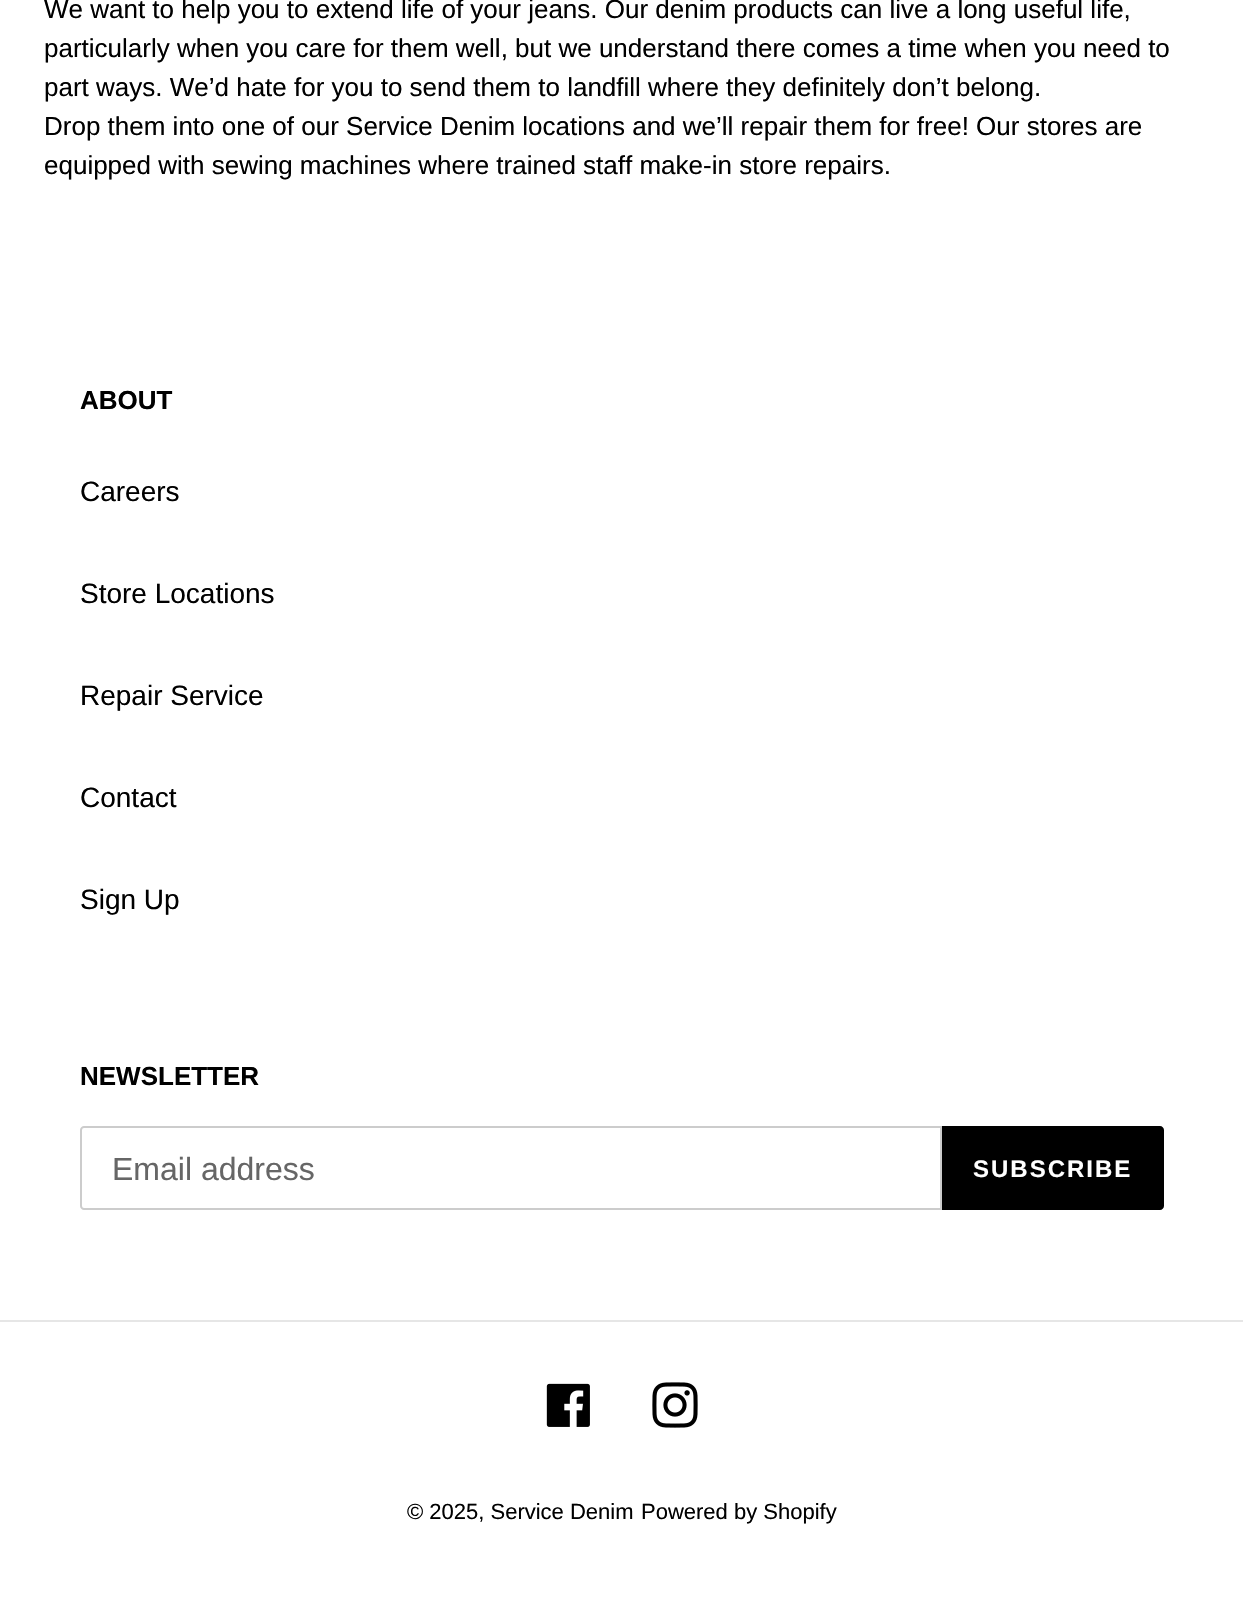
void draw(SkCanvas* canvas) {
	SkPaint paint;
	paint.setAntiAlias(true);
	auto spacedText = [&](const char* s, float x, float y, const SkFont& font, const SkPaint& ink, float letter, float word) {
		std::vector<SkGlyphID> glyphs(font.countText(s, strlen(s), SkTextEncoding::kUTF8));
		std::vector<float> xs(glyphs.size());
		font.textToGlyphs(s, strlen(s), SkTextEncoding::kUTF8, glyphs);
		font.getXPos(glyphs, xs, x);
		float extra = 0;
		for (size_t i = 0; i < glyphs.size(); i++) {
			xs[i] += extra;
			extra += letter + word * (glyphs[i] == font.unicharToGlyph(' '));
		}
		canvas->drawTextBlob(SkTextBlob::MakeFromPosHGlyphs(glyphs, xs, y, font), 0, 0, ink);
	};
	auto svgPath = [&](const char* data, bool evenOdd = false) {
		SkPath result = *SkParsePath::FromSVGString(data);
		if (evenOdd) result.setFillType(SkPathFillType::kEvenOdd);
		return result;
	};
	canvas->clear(0xffffffff);
	SkFont f1(fontMgr->matchFamilyStyle("Liberation Sans", SkFontStyle::Normal()), 26);
	f1.setSubpixel(true);
	paint.setColor(0xff000000);
	canvas->drawString("We want to help you to extend life of your jeans. Our denim products can live a long useful life,", 44, 18, f1, paint);
	canvas->drawString("particularly when you care for them well, but we understand there comes a time when you need to", 44, 57, f1, paint);
	canvas->drawString("part ways. We’d hate for you to send them to landfill where they definitely don’t belong.", 44, 96, f1, paint);
	canvas->drawString("Drop them into one of our Service Denim locations and we’ll repair them for free! Our stores are", 44, 135, f1, paint);
	canvas->drawString("equipped with sewing machines where trained staff make-in store repairs.", 44, 174, f1, paint);
	SkFont f2(fontMgr->matchFamilyStyle("Liberation Sans", SkFontStyle::Bold()), 26);
	f2.setSubpixel(true);
	canvas->drawString("ABOUT", 80, 409, f2, paint);
	SkFont f3(fontMgr->matchFamilyStyle("Liberation Sans", SkFontStyle::Normal()), 28);
	f3.setSubpixel(true);
	canvas->drawString("Careers", 80, 501, f3, paint);
	canvas->drawString("Store Locations", 80, 603, f3, paint);
	canvas->drawString("Repair Service", 80, 705, f3, paint);
	canvas->drawString("Contact", 80, 807, f3, paint);
	canvas->drawString("Sign Up", 80, 909, f3, paint);
	canvas->drawString("NEWSLETTER", 80, 1085, f2, paint);
	paint.setStroke(true);
	paint.setStrokeWidth(2);
	paint.setColor(0xffcccccc);
	canvas->drawPath(svgPath("M84 1127H941V1209H84C82.5 1209 81 1207.5 81 1206V1130C81 1128.5 82.5 1127 84 1127Z"), paint);
	SkFont f4(fontMgr->matchFamilyStyle("Liberation Sans", SkFontStyle::Normal()), 32);
	f4.setSubpixel(true);
	paint.setStroke(false);
	paint.setColor(0xff666666);
	canvas->drawString("Email address", 112, 1180, f4, paint);
	paint.setColor(0xff000000);
	canvas->drawPath(svgPath("M942 1126H1160C1162 1126 1164 1128 1164 1130V1206C1164 1208 1162 1210 1160 1210H942Z"), paint);
	SkFont f5(fontMgr->matchFamilyStyle("Liberation Sans", SkFontStyle::Bold()), 24);
	f5.setSubpixel(true);
	paint.setColor(0xffffffff);
	spacedText("SUBSCRIBE", 973, 1177, f5, paint, 2, 0);
	paint.setColor(0xffe6e6e6);
	canvas->drawRect(SkRect::MakeXYWH(0, 1320, 1243, 2), paint);
	canvas->drawImageRect(SkImages::DeferredFromEncodedData(SkData::MakeFromFileName("img1.png")), SkRect::MakeXYWH(546, 1383, 44, 44), SkSamplingOptions());
	canvas->drawImageRect(SkImages::DeferredFromEncodedData(SkData::MakeFromFileName("img2.png")), SkRect::MakeXYWH(652, 1382, 46, 46), SkSamplingOptions());
	SkFont f6(fontMgr->matchFamilyStyle("Liberation Sans", SkFontStyle::Normal()), 22);
	f6.setSubpixel(true);
	paint.setColor(0xff000000);
	canvas->drawString("© 2025, Service Denim", 407, 1519, f6, paint);
	canvas->drawString("Powered by Shopify", 641, 1519, f6, paint);
}
